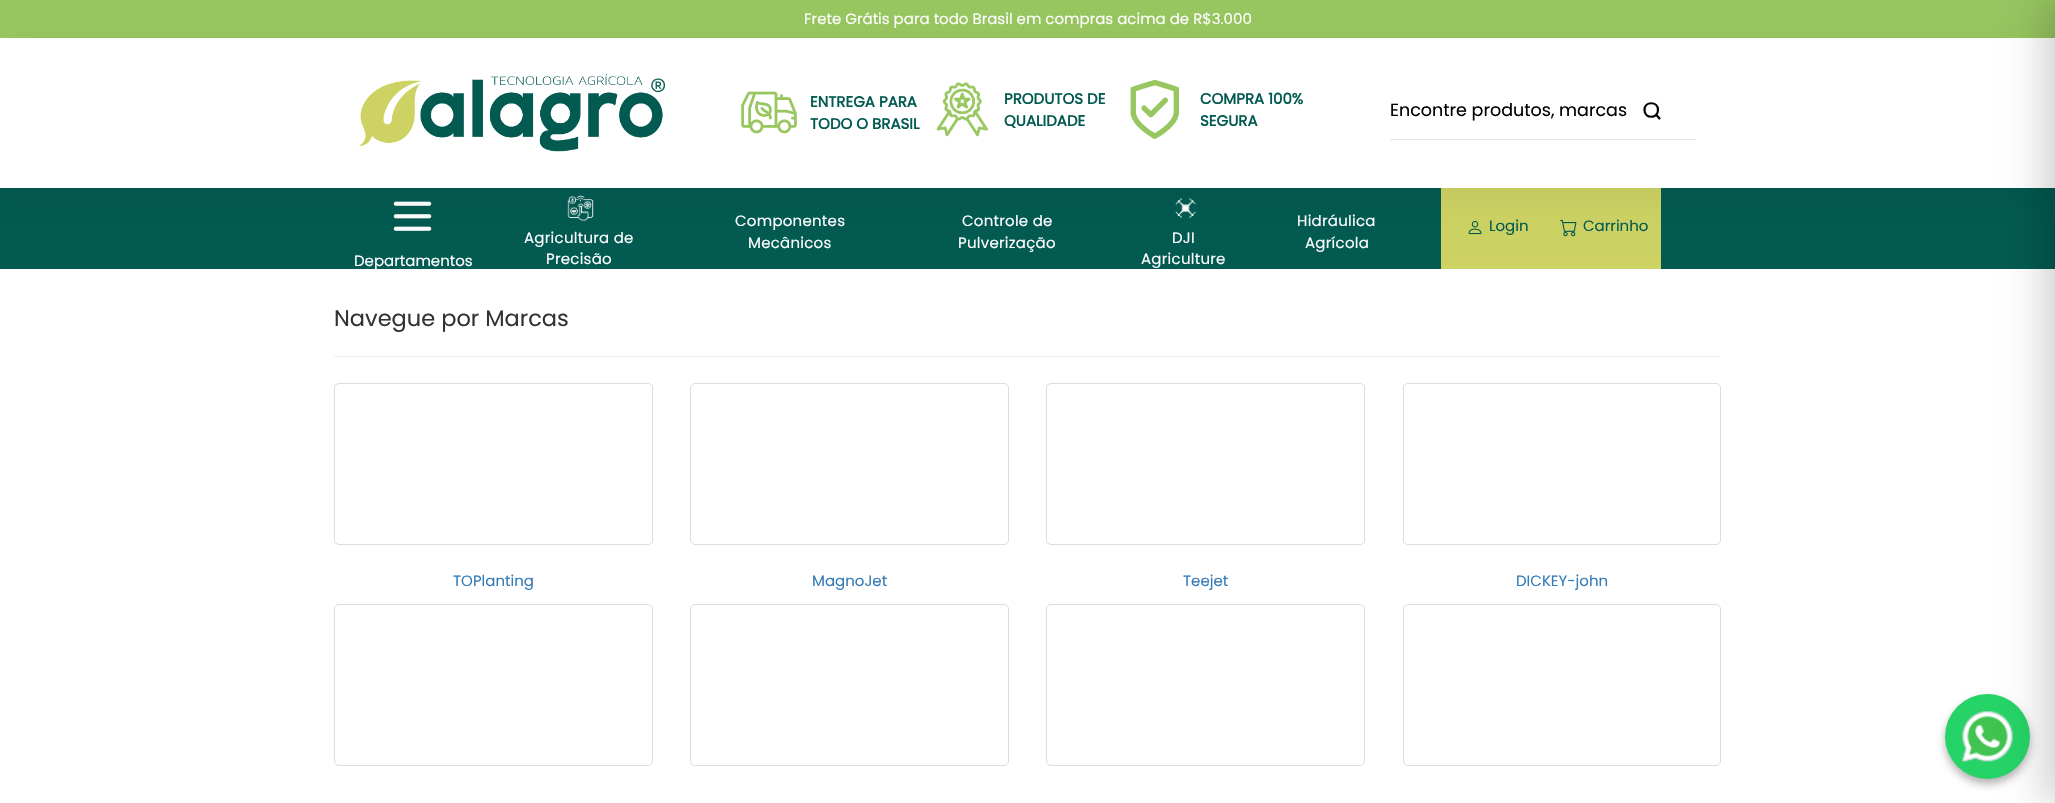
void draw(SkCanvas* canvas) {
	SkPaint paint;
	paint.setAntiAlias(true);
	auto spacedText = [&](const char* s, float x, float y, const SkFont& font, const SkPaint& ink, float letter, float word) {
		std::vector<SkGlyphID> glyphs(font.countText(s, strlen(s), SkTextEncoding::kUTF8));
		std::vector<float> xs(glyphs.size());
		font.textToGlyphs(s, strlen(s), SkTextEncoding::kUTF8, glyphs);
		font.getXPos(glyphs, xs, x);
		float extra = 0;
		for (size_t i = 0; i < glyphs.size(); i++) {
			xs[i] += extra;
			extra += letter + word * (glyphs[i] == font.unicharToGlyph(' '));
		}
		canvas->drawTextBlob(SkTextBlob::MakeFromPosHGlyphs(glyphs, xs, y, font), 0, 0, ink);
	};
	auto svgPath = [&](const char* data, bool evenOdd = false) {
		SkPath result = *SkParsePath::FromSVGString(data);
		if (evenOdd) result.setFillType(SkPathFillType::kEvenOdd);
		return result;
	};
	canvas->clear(0xffffffff);
	paint.setColor(0xff98c660);
	canvas->drawRect(SkRect::MakeXYWH(0, 0, 2055, 38), paint);
	SkFont f1(fontMgr->matchFamilyStyle("Poppins", SkFontStyle::Normal()), 15);
	f1.setSubpixel(true);
	paint.setColor(0xffffffff);
	canvas->drawString("Frete Grátis para todo Brasil em compras acima de R$3.000", 804, 24, f1, paint);
	paint.setColor(0xff025a51);
	canvas->drawRect(SkRect::MakeXYWH(0, 188, 2055, 81), paint);
	paint.setColor(0xffcdd263);
	canvas->drawRect(SkRect::MakeXYWH(1441, 188, 220, 81), paint);
	canvas->drawImageRect(SkImages::DeferredFromEncodedData(SkData::MakeFromFileName("img5.png")), SkRect::MakeXYWH(1468, 221, 14, 14), SkSamplingOptions());
	canvas->drawImageRect(SkImages::DeferredFromEncodedData(SkData::MakeFromFileName("img6.png")), SkRect::MakeXYWH(1560, 219, 17, 18), SkSamplingOptions());
	canvas->drawImageRect(SkImages::DeferredFromEncodedData(SkData::MakeFromFileName("img7.png")), SkRect::MakeXYWH(393, 201, 39, 30), SkSamplingOptions());
	canvas->drawImageRect(SkImages::DeferredFromEncodedData(SkData::MakeFromFileName("img8.png")), SkRect::MakeXYWH(567, 195, 27, 27), SkSamplingOptions());
	canvas->drawImageRect(SkImages::DeferredFromEncodedData(SkData::MakeFromFileName("img9.png")), SkRect::MakeXYWH(1175, 198, 22, 20), SkSamplingOptions());
	paint.setColor(0x0f000000);
	paint.setMaskFilter(SkMaskFilter::MakeBlur(kNormal_SkBlurStyle, 19));
	canvas->drawRect(SkRect::MakeXYWH(0, 48, 2055, 150), paint);
	paint.setMaskFilter(nullptr);
	paint.setColor(0xffffffff);
	canvas->drawRect(SkRect::MakeXYWH(0, 38, 2055, 150), paint);
	paint.setColor(0x4d000000);
	paint.setMaskFilter(SkMaskFilter::MakeBlur(kNormal_SkBlurStyle, 4));
	canvas->drawRoundRect(SkRect::MakeXYWH(1945, 699, 85, 85), 42.5, 42.5, paint);
	paint.setMaskFilter(nullptr);
	paint.setColor(0xff25d366);
	canvas->drawCircle(1987.5, 736.5, 42.5, paint);
	canvas->drawImageRect(SkImages::DeferredFromEncodedData(SkData::MakeFromFileName("img10.png")), SkRect::MakeXYWH(1961, 711, 52, 52), SkSamplingOptions());
	paint.setColor(0x2e000000);
	paint.setMaskFilter(SkMaskFilter::MakeBlur(kNormal_SkBlurStyle, 19));
	canvas->drawRect(SkRect::MakeXYWH(2043, 0, 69, 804), paint);
	paint.setMaskFilter(nullptr);
	canvas->drawImageRect(SkImages::DeferredFromEncodedData(SkData::MakeFromFileName("img1.png")), SkRect::MakeXYWH(359, 73, 306, 79), SkSamplingOptions());
	canvas->drawImageRect(SkImages::DeferredFromEncodedData(SkData::MakeFromFileName("img2.png")), SkRect::MakeXYWH(741, 91, 56, 43), SkSamplingOptions());
	SkFont f2(fontMgr->matchFamilyStyle("Poppins", SkFontStyle::Bold()), 15);
	f2.setSubpixel(true);
	paint.setColor(0xff025a51);
	canvas->drawString("ENTREGA PARA", 810, 107, f2, paint);
	canvas->drawString("TODO O BRASIL", 810, 129, f2, paint);
	canvas->drawImageRect(SkImages::DeferredFromEncodedData(SkData::MakeFromFileName("img3.png")), SkRect::MakeXYWH(936, 82, 52, 55), SkSamplingOptions());
	canvas->drawString("PRODUTOS DE", 1004, 104, f2, paint);
	canvas->drawString("QUALIDADE", 1004, 126, f2, paint);
	canvas->drawImageRect(SkImages::DeferredFromEncodedData(SkData::MakeFromFileName("img4.png")), SkRect::MakeXYWH(1130, 79, 50, 60), SkSamplingOptions());
	canvas->drawString("COMPRA 100%", 1200, 104, f2, paint);
	canvas->drawString("SEGURA", 1200, 126, f2, paint);
	paint.setColor(0xffe5e7eb);
	canvas->drawRect(SkRect::MakeXYWH(1390, 139, 306, 1), paint);
	SkFont f3(fontMgr->matchFamilyStyle("Poppins", SkFontStyle::Normal()), 17.5);
	f3.setSubpixel(true);
	paint.setColor(0xff000000);
	canvas->drawString("Encontre produtos, marcas", 1390, 116, f3, paint);
	paint.setStroke(true);
	paint.setStrokeWidth(2.2);
	paint.setStrokeCap(SkPaint::kRound_Cap);
	paint.setStrokeJoin(SkPaint::kRound_Join);
	canvas->drawPath(svgPath("M1659.5 118.5L1656 114.5M1658 110C1658 101 1644.5 101 1644.5 110C1644.5 119 1658 119 1658 110Z"), paint);
	paint.setStroke(false);
	paint.setColor(0xffffffff);
	spacedText("Componentes", 735, 226, f1, paint, 0.25, 0);
	spacedText("Mecânicos", 748, 248, f1, paint, 0.25, 0);
	spacedText("Controle de", 962, 226, f1, paint, 0.25, 0);
	spacedText("Pulverização", 958, 248, f1, paint, 0.25, 0);
	spacedText("Hidráulica", 1297, 226, f1, paint, 0.25, 0);
	spacedText("Agrícola", 1305, 248, f1, paint, 0.25, 0);
	paint.setColor(0xff025a51);
	canvas->drawString("Login", 1489, 231, f1, paint);
	canvas->drawString("Carrinho", 1583, 231, f1, paint);
	paint.setColor(0xffffffff);
	canvas->drawString("Departamentos", 354, 266, f1, paint);
	spacedText("Agricultura de", 524, 243, f1, paint, 0.25, 0);
	spacedText("Precisão", 546, 264, f1, paint, 0.25, 0);
	spacedText("DJI", 1172, 243, f1, paint, 0.25, 0);
	spacedText("Agriculture", 1141, 264, f1, paint, 0.25, 0);
	SkFont f4(fontMgr->matchFamilyStyle("Poppins", SkFontStyle::Normal()), 22.5);
	f4.setSubpixel(true);
	paint.setColor(0xff333333);
	canvas->drawString("Navegue por Marcas", 334, 326, f4, paint);
	paint.setColor(0xffeeeeee);
	canvas->drawRect(SkRect::MakeXYWH(334, 356, 1387, 1), paint);
	paint.setStroke(true);
	paint.setStrokeWidth(1);
	paint.setStrokeCap(SkPaint::kButt_Cap);
	paint.setStrokeJoin(SkPaint::kMiter_Join);
	paint.setColor(0xffdddddd);
	canvas->drawRoundRect(SkRect::MakeXYWH(334.5, 383.5, 318, 161), 4.5, 4.5, paint);
	paint.setStroke(false);
	paint.setColor(0xff337ab7);
	canvas->drawString("TOPlanting", 453, 586, f1, paint);
	paint.setStroke(true);
	paint.setColor(0xffdddddd);
	canvas->drawRoundRect(SkRect::MakeXYWH(690.5, 383.5, 318, 161), 4.5, 4.5, paint);
	paint.setStroke(false);
	paint.setColor(0xff337ab7);
	canvas->drawString("MagnoJet", 812, 586, f1, paint);
	paint.setStroke(true);
	paint.setColor(0xffdddddd);
	canvas->drawRoundRect(SkRect::MakeXYWH(1046.5, 383.5, 318, 161), 4.5, 4.5, paint);
	paint.setStroke(false);
	paint.setColor(0xff337ab7);
	canvas->drawString("Teejet", 1183, 586, f1, paint);
	paint.setStroke(true);
	paint.setColor(0xffdddddd);
	canvas->drawRoundRect(SkRect::MakeXYWH(1403.5, 383.5, 317, 161), 4.5, 4.5, paint);
	paint.setStroke(false);
	paint.setColor(0xff337ab7);
	canvas->drawString("DICKEY-john", 1516, 586, f1, paint);
	paint.setStroke(true);
	paint.setColor(0xffdddddd);
	canvas->drawRoundRect(SkRect::MakeXYWH(334.5, 604.5, 318, 161), 4.5, 4.5, paint);
	canvas->drawRoundRect(SkRect::MakeXYWH(690.5, 604.5, 318, 161), 4.5, 4.5, paint);
	canvas->drawRoundRect(SkRect::MakeXYWH(1046.5, 604.5, 318, 161), 4.5, 4.5, paint);
	canvas->drawRoundRect(SkRect::MakeXYWH(1403.5, 604.5, 317, 161), 4.5, 4.5, paint);
}
